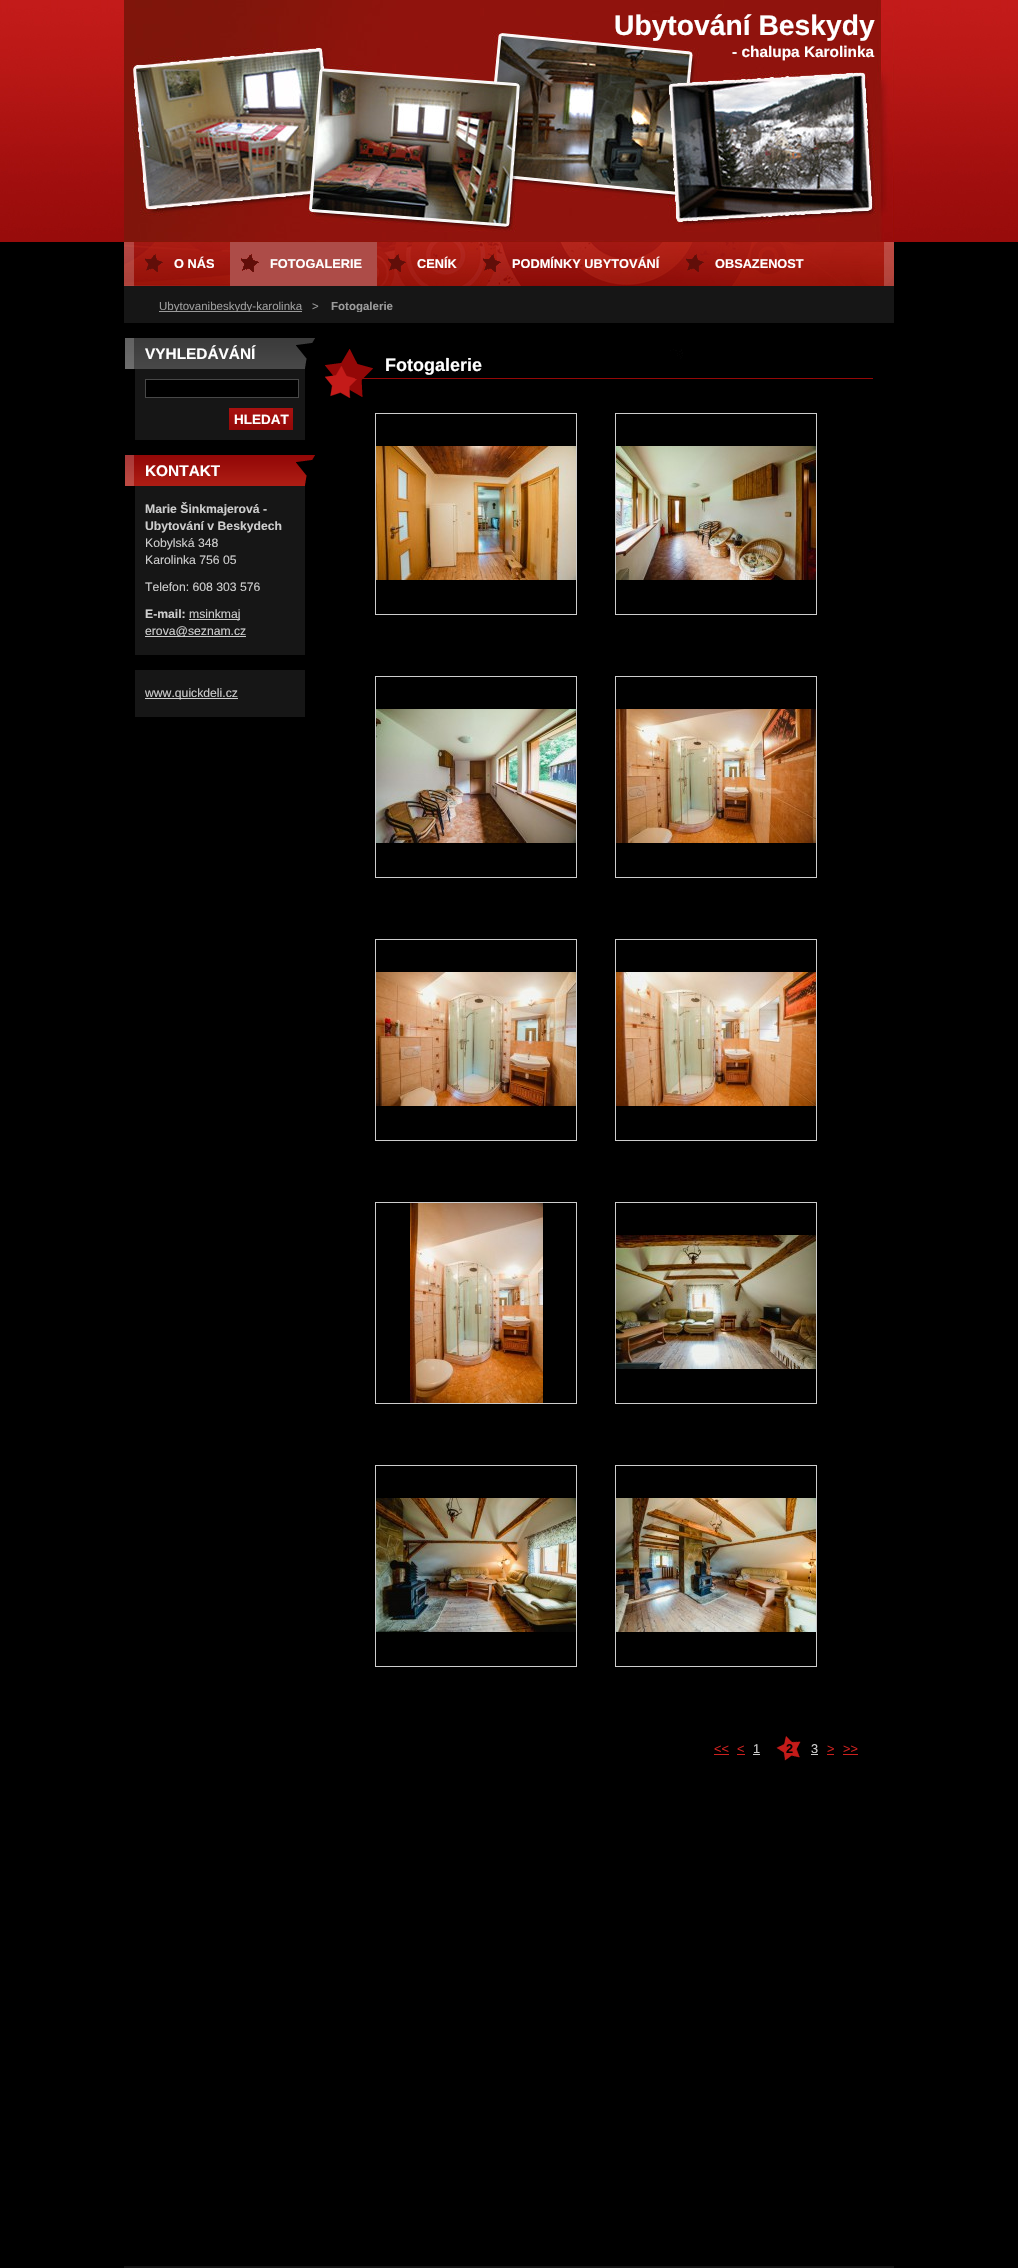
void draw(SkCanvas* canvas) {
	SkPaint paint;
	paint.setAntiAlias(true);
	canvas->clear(0xff000000);
	canvas->drawImageRect(SkImages::DeferredFromEncodedData(SkData::MakeFromFileName("img1.png")), SkRect::MakeXYWH(0, 0, 1018, 242), SkSamplingOptions());
	canvas->drawImageRect(SkImages::DeferredFromEncodedData(SkData::MakeFromFileName("img2.png")), SkRect::MakeXYWH(124, 0, 770, 242), SkSamplingOptions());
	SkFont f1(fontMgr->matchFamilyStyle("Liberation Sans", SkFontStyle::Bold()), 28.25);
	f1.setSubpixel(true);
	paint.setColor(0xffffffff);
	canvas->drawString("Ubytování Beskydy", 614, 35, f1, paint);
	SkFont f2(fontMgr->matchFamilyStyle("Liberation Sans", SkFontStyle::Bold()), 15.4);
	f2.setSubpixel(true);
	canvas->drawString("- chalupa Karolinka", 732, 57, f2, paint);
	canvas->drawImageRect(SkImages::DeferredFromEncodedData(SkData::MakeFromFileName("img3.png")), SkRect::MakeXYWH(124, 242, 770, 44), SkSamplingOptions());
	canvas->drawImageRect(SkImages::DeferredFromEncodedData(SkData::MakeFromFileName("img4.png")), SkRect::MakeXYWH(145, 254, 18, 18), SkSamplingOptions());
	SkFont f3(fontMgr->matchFamilyStyle("Liberation Sans", SkFontStyle::Bold()), 12.75);
	f3.setSubpixel(true);
	canvas->drawString("O NÁS", 174, 268, f3, paint);
	paint.setColor(0xffad4c48);
	canvas->drawRect(SkRect::MakeXYWH(230, 242, 147, 44), paint);
	canvas->drawImageRect(SkImages::DeferredFromEncodedData(SkData::MakeFromFileName("img5.png")), SkRect::MakeXYWH(241, 254, 18, 18), SkSamplingOptions());
	paint.setColor(0xffffffff);
	canvas->drawString("FOTOGALERIE", 270, 268, f3, paint);
	canvas->drawImageRect(SkImages::DeferredFromEncodedData(SkData::MakeFromFileName("img6.png")), SkRect::MakeXYWH(388, 254, 18, 18), SkSamplingOptions());
	canvas->drawString("CENÍK", 417, 268, f3, paint);
	canvas->drawImageRect(SkImages::DeferredFromEncodedData(SkData::MakeFromFileName("img7.png")), SkRect::MakeXYWH(483, 254, 18, 18), SkSamplingOptions());
	canvas->drawString("PODMÍNKY UBYTOVÁNÍ", 512, 268, f3, paint);
	canvas->drawImageRect(SkImages::DeferredFromEncodedData(SkData::MakeFromFileName("img8.png")), SkRect::MakeXYWH(686, 254, 18, 18), SkSamplingOptions());
	canvas->drawString("OBSAZENOST", 715, 268, f3, paint);
	paint.setColor(0xff161616);
	canvas->drawRect(SkRect::MakeXYWH(124, 286, 770, 37), paint);
	paint.setColor(0xff9b9b9b);
	canvas->drawRect(SkRect::MakeXYWH(159, 311, 143, 1), paint);
	canvas->save();
	canvas->clipRect(SkRect::MakeXYWH(159, 300, 450, 12));
	SkFont f4(fontMgr->matchFamilyStyle("Liberation Sans", SkFontStyle::Normal()), 11.5);
	f4.setSubpixel(true);
	canvas->drawString("Ubytovanibeskydy-karolinka", 159, 310, f4, paint);
	canvas->restore();
	canvas->drawString(">", 312, 310, f4, paint);
	canvas->save();
	canvas->clipRect(SkRect::MakeXYWH(159, 300, 450, 12));
	SkFont f5(fontMgr->matchFamilyStyle("Liberation Sans", SkFontStyle::Bold()), 11.5);
	f5.setSubpixel(true);
	canvas->drawString("Fotogalerie", 331, 310, f5, paint);
	canvas->restore();
	canvas->drawImageRect(SkImages::DeferredFromEncodedData(SkData::MakeFromFileName("img9.png")), SkRect::MakeXYWH(125, 338, 190, 31), SkSamplingOptions());
	paint.setColor(0xffffffff);
	canvas->drawString("VYHLEDÁVÁNÍ", 145, 359, f2, paint);
	paint.setColor(0xff161616);
	canvas->drawRect(SkRect::MakeXYWH(135, 369, 170, 71), paint);
	paint.setColor(0xff000000);
	canvas->drawRect(SkRect::MakeXYWH(145.5, 379.5, 153, 18), paint);
	paint.setStroke(true);
	paint.setStrokeWidth(1);
	paint.setColor(0xff484848);
	canvas->drawRect(SkRect::MakeXYWH(145.5, 379.5, 153, 18), paint);
	canvas->drawImageRect(SkImages::DeferredFromEncodedData(SkData::MakeFromFileName("img10.png")), SkRect::MakeXYWH(229, 408, 64, 22), SkSamplingOptions());
	SkFont f6(fontMgr->matchFamilyStyle("Liberation Sans", SkFontStyle::Bold()), 13.5);
	f6.setSubpixel(true);
	paint.setStroke(false);
	paint.setColor(0xffffffff);
	canvas->drawString("HLEDAT", 234, 424, f6, paint);
	canvas->drawImageRect(SkImages::DeferredFromEncodedData(SkData::MakeFromFileName("img11.png")), SkRect::MakeXYWH(125, 455, 190, 31), SkSamplingOptions());
	canvas->drawString("KONTAKT", 145, 476, f2, paint);
	paint.setColor(0xff161616);
	canvas->drawRect(SkRect::MakeXYWH(135, 486, 170, 169), paint);
	SkFont f7(fontMgr->matchFamilyStyle("Liberation Sans", SkFontStyle::Bold()), 12.2);
	f7.setSubpixel(true);
	paint.setColor(0xffcdcdcd);
	canvas->drawString("Marie Šinkmajerová -", 145, 513, f7, paint);
	canvas->drawString("Ubytování v Beskydech", 145, 530, f7, paint);
	SkFont f8(fontMgr->matchFamilyStyle("Liberation Sans", SkFontStyle::Normal()), 12.2);
	f8.setSubpixel(true);
	canvas->drawString("Kobylská 348", 145, 547, f8, paint);
	canvas->drawString("Karolinka 756 05", 145, 564, f8, paint);
	canvas->drawString("Telefon: 608 303 576", 145, 591, f8, paint);
	canvas->drawString("E-mail:", 145, 618, f7, paint);
	canvas->drawRect(SkRect::MakeXYWH(189, 619, 51, 1), paint);
	canvas->drawString("msinkmaj", 189, 618, f8, paint);
	canvas->drawRect(SkRect::MakeXYWH(145, 636, 101, 1), paint);
	canvas->drawString("erova@seznam.cz", 145, 635, f8, paint);
	paint.setColor(0xff161616);
	canvas->drawRect(SkRect::MakeXYWH(135, 670, 170, 47), paint);
	paint.setColor(0xffcdcdcd);
	canvas->drawRect(SkRect::MakeXYWH(145, 698, 93, 1), paint);
	canvas->drawString("www.quickdeli.cz", 145, 697, f8, paint);
	canvas->drawImageRect(SkImages::DeferredFromEncodedData(SkData::MakeFromFileName("img12.png")), SkRect::MakeXYWH(325, 349, 548, 49), SkSamplingOptions());
	SkFont f9(fontMgr->matchFamilyStyle("Liberation Sans", SkFontStyle::Bold()), 18);
	f9.setSubpixel(true);
	paint.setColor(0xffffffff);
	canvas->drawString("Fotogalerie", 385, 371, f9, paint);
	paint.setStroke(true);
	paint.setColor(0xffcdcdcd);
	canvas->drawRect(SkRect::MakeXYWH(375.5, 413.5, 201, 201), paint);
	canvas->drawImageRect(SkImages::DeferredFromEncodedData(SkData::MakeFromFileName("img13.png")), SkRect::MakeXYWH(376, 446, 200, 134), SkSamplingOptions());
	canvas->drawRect(SkRect::MakeXYWH(615.5, 413.5, 201, 201), paint);
	canvas->drawImageRect(SkImages::DeferredFromEncodedData(SkData::MakeFromFileName("img14.png")), SkRect::MakeXYWH(616, 446, 200, 134), SkSamplingOptions());
	canvas->drawRect(SkRect::MakeXYWH(375.5, 676.5, 201, 201), paint);
	canvas->drawImageRect(SkImages::DeferredFromEncodedData(SkData::MakeFromFileName("img15.png")), SkRect::MakeXYWH(376, 709, 200, 134), SkSamplingOptions());
	canvas->drawRect(SkRect::MakeXYWH(615.5, 676.5, 201, 201), paint);
	canvas->drawImageRect(SkImages::DeferredFromEncodedData(SkData::MakeFromFileName("img16.png")), SkRect::MakeXYWH(616, 709, 200, 134), SkSamplingOptions());
	canvas->drawRect(SkRect::MakeXYWH(375.5, 939.5, 201, 201), paint);
	canvas->drawImageRect(SkImages::DeferredFromEncodedData(SkData::MakeFromFileName("img17.png")), SkRect::MakeXYWH(376, 972, 200, 134), SkSamplingOptions());
	canvas->drawRect(SkRect::MakeXYWH(615.5, 939.5, 201, 201), paint);
	canvas->drawImageRect(SkImages::DeferredFromEncodedData(SkData::MakeFromFileName("img18.png")), SkRect::MakeXYWH(616, 972, 200, 134), SkSamplingOptions());
	canvas->drawRect(SkRect::MakeXYWH(375.5, 1202.5, 201, 201), paint);
	canvas->drawImageRect(SkImages::DeferredFromEncodedData(SkData::MakeFromFileName("img19.png")), SkRect::MakeXYWH(410, 1203, 133, 200), SkSamplingOptions());
	canvas->drawRect(SkRect::MakeXYWH(615.5, 1202.5, 201, 201), paint);
	canvas->drawImageRect(SkImages::DeferredFromEncodedData(SkData::MakeFromFileName("img20.png")), SkRect::MakeXYWH(616, 1235, 200, 134), SkSamplingOptions());
	canvas->drawRect(SkRect::MakeXYWH(375.5, 1465.5, 201, 201), paint);
	canvas->drawImageRect(SkImages::DeferredFromEncodedData(SkData::MakeFromFileName("img21.png")), SkRect::MakeXYWH(376, 1498, 200, 134), SkSamplingOptions());
	canvas->drawRect(SkRect::MakeXYWH(615.5, 1465.5, 201, 201), paint);
	canvas->drawImageRect(SkImages::DeferredFromEncodedData(SkData::MakeFromFileName("img22.png")), SkRect::MakeXYWH(616, 1498, 200, 134), SkSamplingOptions());
	SkFont f10(fontMgr->matchFamilyStyle("Liberation Sans", SkFontStyle::Normal()), 12.75);
	f10.setSubpixel(true);
	paint.setStroke(false);
	canvas->drawString("1", 753, 1753, f10, paint);
	canvas->drawRect(SkRect::MakeXYWH(753, 1754, 7, 1), paint);
	canvas->drawImageRect(SkImages::DeferredFromEncodedData(SkData::MakeFromFileName("img23.png")), SkRect::MakeXYWH(776, 1736, 25, 25), SkSamplingOptions());
	paint.setColor(0xffce211f);
	canvas->drawString("<<", 714, 1753, f10, paint);
	canvas->drawRect(SkRect::MakeXYWH(714, 1754, 15, 1), paint);
	canvas->drawString("<", 737, 1753, f10, paint);
	canvas->drawRect(SkRect::MakeXYWH(737, 1754, 8, 1), paint);
	paint.setColor(0xff000000);
	canvas->drawString("2", 786, 1753, f3, paint);
	paint.setColor(0xffcdcdcd);
	canvas->drawString("3", 811, 1753, f10, paint);
	canvas->drawRect(SkRect::MakeXYWH(811, 1754, 7, 1), paint);
	paint.setColor(0xffce211f);
	canvas->drawString(">", 827, 1753, f10, paint);
	canvas->drawRect(SkRect::MakeXYWH(827, 1754, 7, 1), paint);
	canvas->drawString(">>", 843, 1753, f10, paint);
	canvas->drawRect(SkRect::MakeXYWH(843, 1754, 15, 1), paint);
	paint.setColor(0xff141414);
	canvas->drawRect(SkRect::MakeXYWH(124, 2266, 770, 2), paint);
}
